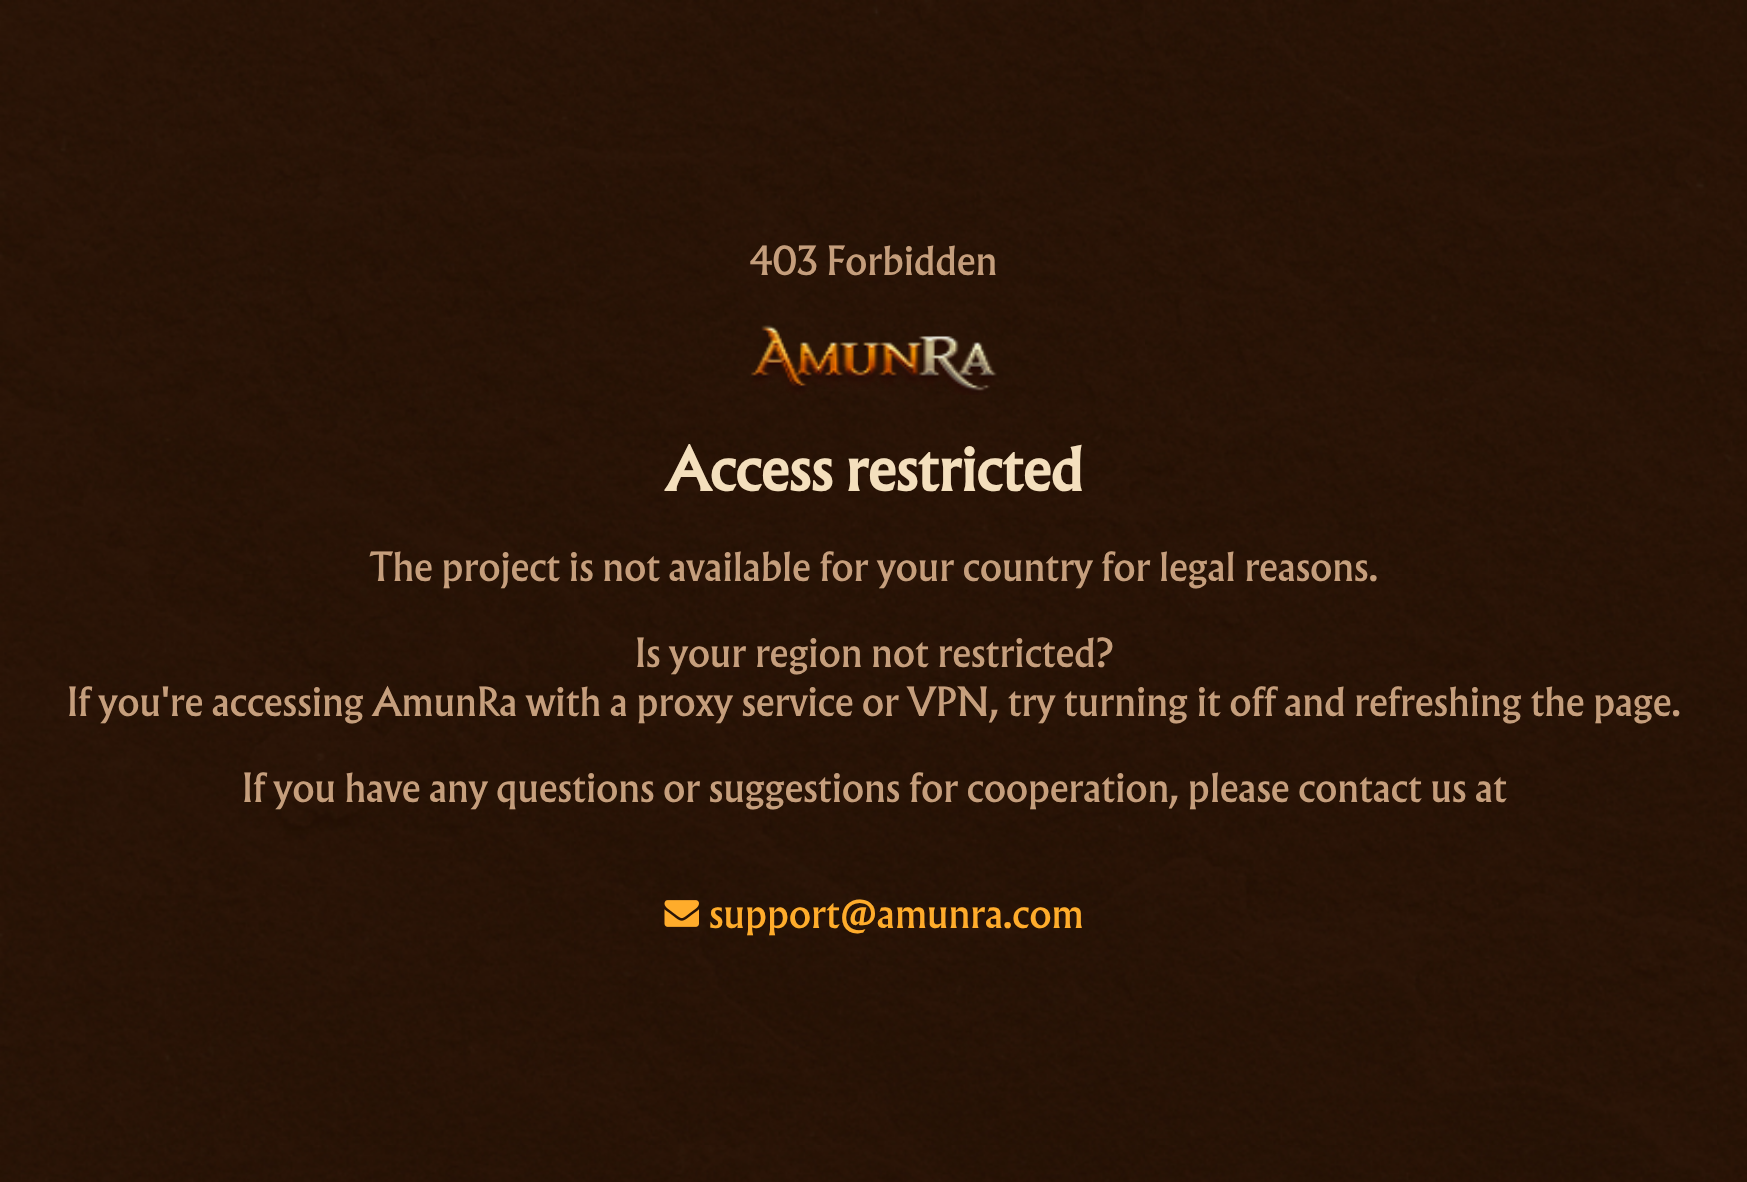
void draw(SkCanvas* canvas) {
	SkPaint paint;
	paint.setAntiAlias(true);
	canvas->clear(0xffffffff);
	canvas->drawImageRect(SkImages::DeferredFromEncodedData(SkData::MakeFromFileName("img1.png")), SkRect::MakeXYWH(0, 0, 1747, 1182), SkSamplingOptions());
	SkFont f1(fontMgr->matchFamilyStyle("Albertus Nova", SkFontStyle::Normal()), 36);
	f1.setSubpixel(true);
	paint.setColor(0xffc59e7c);
	canvas->drawString("403 Forbidden", 750, 275, f1, paint);
	canvas->drawImageRect(SkImages::DeferredFromEncodedData(SkData::MakeFromFileName("img2.png")), SkRect::MakeXYWH(751, 325, 246, 70), SkSamplingOptions());
	SkFont f2(fontMgr->matchFamilyStyle("Albertus Nova", SkFontStyle::Bold()), 54);
	f2.setSubpixel(true);
	paint.setColor(0xfff4dfbd);
	canvas->drawString("Access restricted", 666, 491, f2, paint);
	paint.setColor(0xffc59e7c);
	canvas->drawString("The project is not available for your country for legal reasons.", 370, 581, f1, paint);
	canvas->drawString("Is your region not restricted?", 635, 667, f1, paint);
	canvas->drawString("If you're accessing AmunRa with a proxy service or VPN, try turning it off and refreshing the page.", 67, 716, f1, paint);
	canvas->drawString("If you have any questions or suggestions for cooperation, please contact us at", 242, 802, f1, paint);
	canvas->drawImageRect(SkImages::DeferredFromEncodedData(SkData::MakeFromFileName("img3.png")), SkRect::MakeXYWH(664, 900, 35, 27), SkSamplingOptions());
	paint.setColor(0xffffac2b);
	canvas->drawString("support@amunra.com", 709, 928, f1, paint);
}
